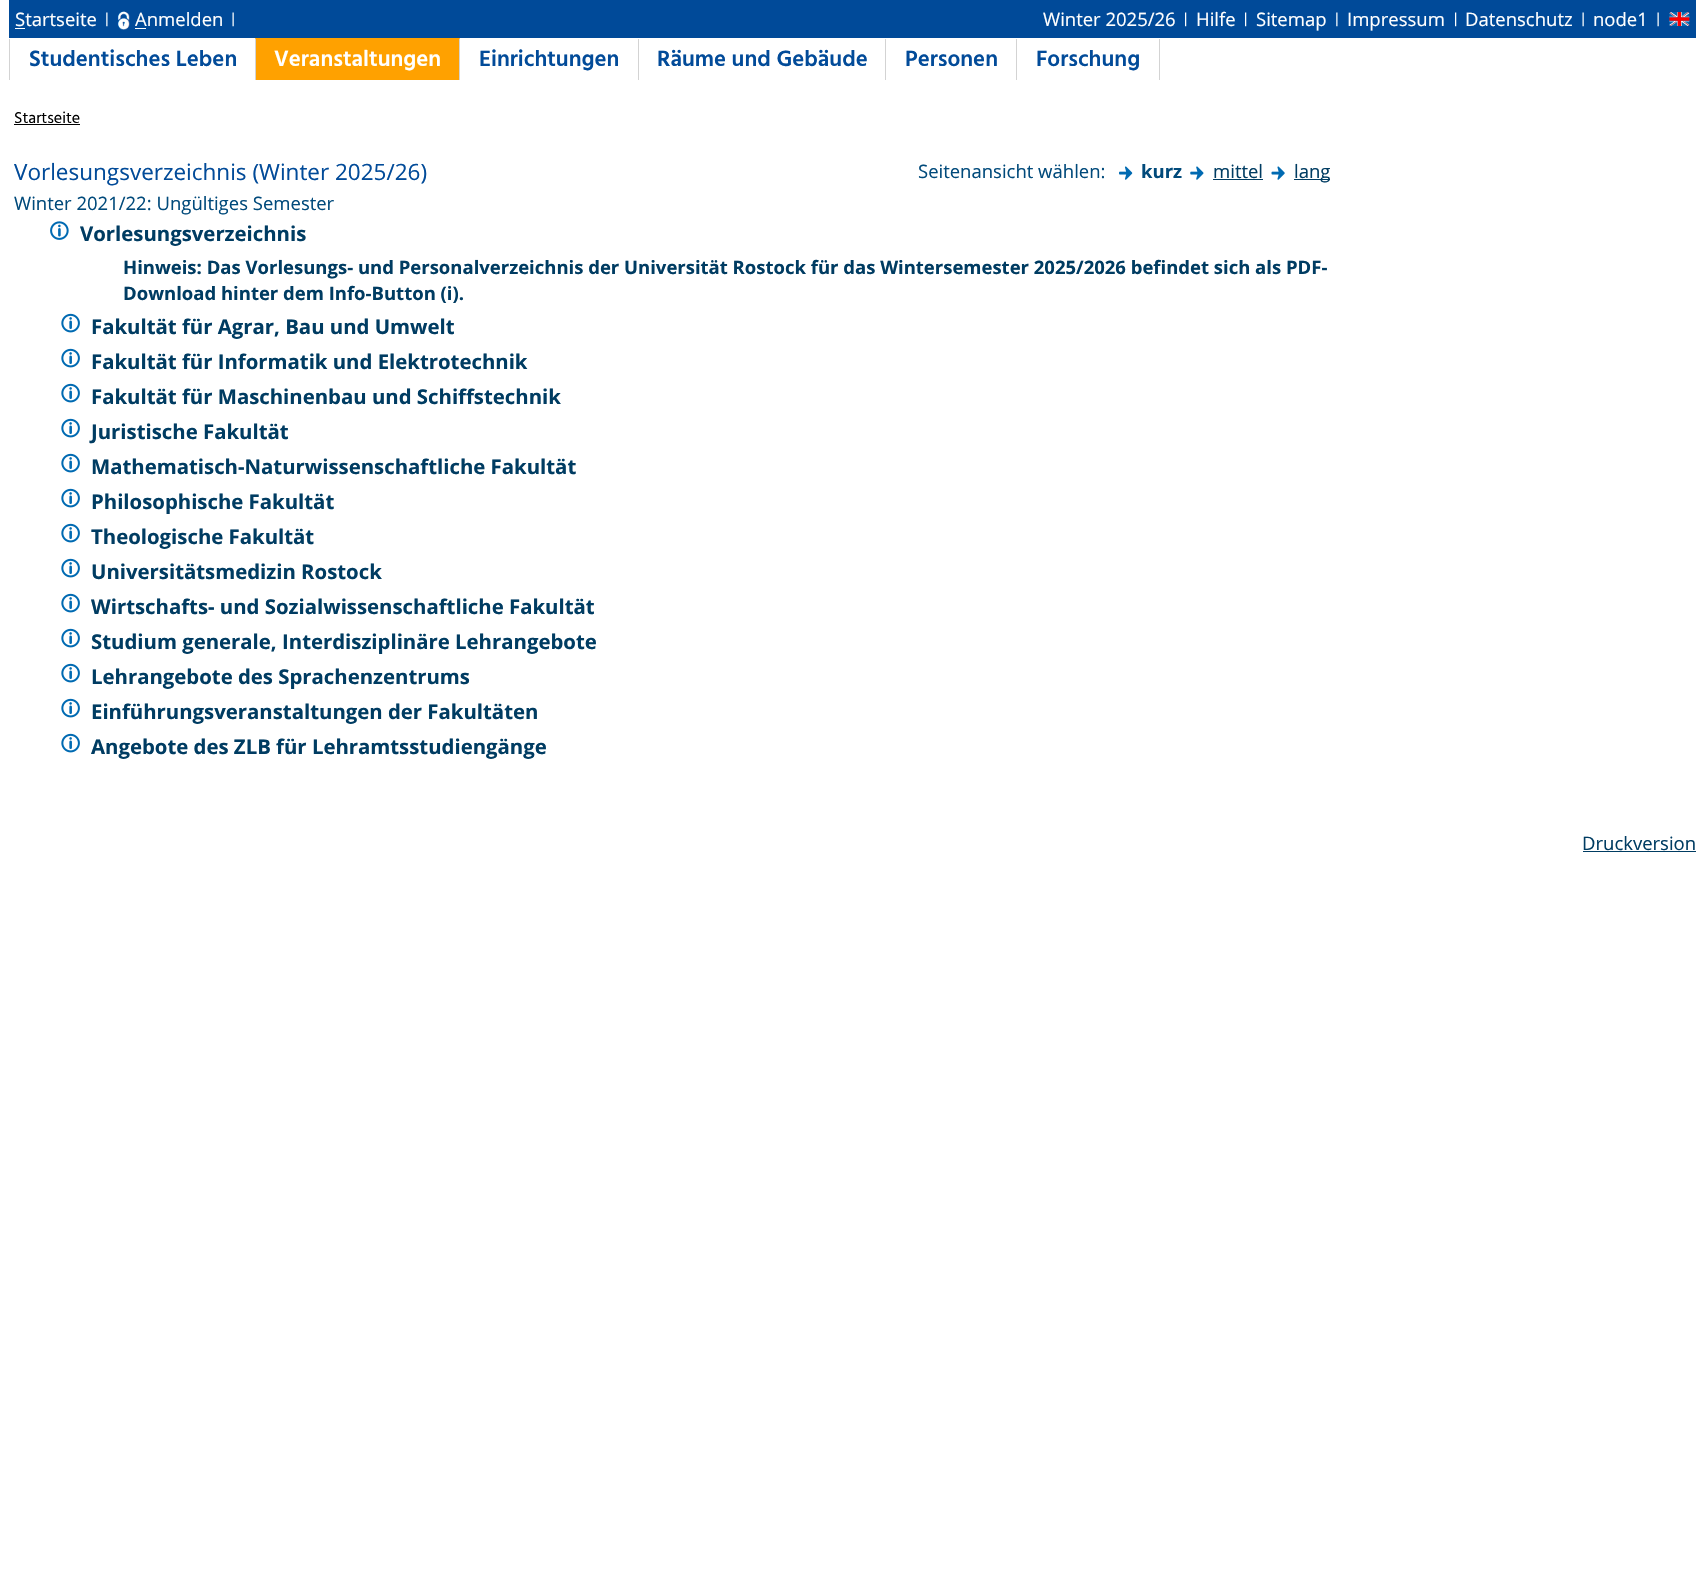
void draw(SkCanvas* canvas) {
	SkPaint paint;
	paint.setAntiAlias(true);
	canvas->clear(0xffffffff);
	paint.setColor(0xff004a99);
	canvas->drawRect(SkRect::MakeXYWH(9, 0, 1687, 38), paint);
	SkFont f1(fontMgr->matchFamilyStyle("Open Sans", SkFontStyle::Normal()), 18.5);
	f1.setSubpixel(true);
	paint.setColor(0xffffffff);
	canvas->drawString("Startseite", 15, 26, f1, paint);
	canvas->drawRect(SkRect::MakeXYWH(15, 28, 10, 1), paint);
	canvas->drawImageRect(SkImages::DeferredFromEncodedData(SkData::MakeFromFileName("img1.png")), SkRect::MakeXYWH(106, 12, 2, 15), SkSamplingOptions());
	canvas->drawImageRect(SkImages::DeferredFromEncodedData(SkData::MakeFromFileName("img2.png")), SkRect::MakeXYWH(117, 11, 13, 19), SkSamplingOptions());
	canvas->drawString("Anmelden", 135, 26, f1, paint);
	canvas->drawRect(SkRect::MakeXYWH(135, 28, 11, 1), paint);
	canvas->drawImageRect(SkImages::DeferredFromEncodedData(SkData::MakeFromFileName("img3.png")), SkRect::MakeXYWH(232, 12, 2, 15), SkSamplingOptions());
	canvas->drawString("Winter 2025/26", 1043, 26, f1, paint);
	canvas->drawImageRect(SkImages::DeferredFromEncodedData(SkData::MakeFromFileName("img4.png")), SkRect::MakeXYWH(1185, 12, 2, 15), SkSamplingOptions());
	canvas->drawString("Hilfe", 1196, 26, f1, paint);
	canvas->drawImageRect(SkImages::DeferredFromEncodedData(SkData::MakeFromFileName("img4.png")), SkRect::MakeXYWH(1245, 12, 2, 15), SkSamplingOptions());
	canvas->drawString("Sitemap", 1256, 26, f1, paint);
	canvas->drawImageRect(SkImages::DeferredFromEncodedData(SkData::MakeFromFileName("img1.png")), SkRect::MakeXYWH(1336, 12, 2, 15), SkSamplingOptions());
	canvas->drawString("Impressum", 1347, 26, f1, paint);
	canvas->drawImageRect(SkImages::DeferredFromEncodedData(SkData::MakeFromFileName("img4.png")), SkRect::MakeXYWH(1455, 12, 2, 15), SkSamplingOptions());
	canvas->drawString("Datenschutz", 1465, 26, f1, paint);
	canvas->drawImageRect(SkImages::DeferredFromEncodedData(SkData::MakeFromFileName("img3.png")), SkRect::MakeXYWH(1582, 12, 2, 15), SkSamplingOptions());
	canvas->drawString("node1", 1593, 26, f1, paint);
	canvas->drawImageRect(SkImages::DeferredFromEncodedData(SkData::MakeFromFileName("img3.png")), SkRect::MakeXYWH(1657, 12, 2, 15), SkSamplingOptions());
	canvas->drawImageRect(SkImages::DeferredFromEncodedData(SkData::MakeFromFileName("img5.png")), SkRect::MakeXYWH(1669, 12, 21, 14), SkSamplingOptions());
	paint.setColor(0xffd3d3d3);
	canvas->drawRect(SkRect::MakeXYWH(9, 39, 1, 41), paint);
	SkFont f2(fontMgr->matchFamilyStyle("Hind", SkFontStyle(600, SkFontStyle::kNormal_Width, SkFontStyle::kUpright_Slant)), 22.75);
	f2.setSubpixel(true);
	paint.setColor(0xff024b99);
	canvas->drawString("Studentisches Leben", 29, 66, f2, paint);
	paint.setColor(0xffffa100);
	canvas->drawRoundRect(SkRect::MakeXYWH(255, 38, 205, 42), 1, 1, paint);
	paint.setColor(0xffd3d3d3);
	canvas->drawRect(SkRect::MakeXYWH(255, 39, 1, 41), paint);
	paint.setColor(0xffffffff);
	canvas->drawString("Veranstaltungen", 274, 66, f2, paint);
	paint.setColor(0xffd3d3d3);
	canvas->drawRect(SkRect::MakeXYWH(459, 39, 1, 41), paint);
	paint.setColor(0xff024b99);
	canvas->drawString("Einrichtungen", 479, 66, f2, paint);
	paint.setColor(0xffd3d3d3);
	canvas->drawRect(SkRect::MakeXYWH(638, 39, 1, 41), paint);
	paint.setColor(0xff024b99);
	canvas->drawString("Räume und Gebäude", 657, 66, f2, paint);
	paint.setColor(0xffd3d3d3);
	canvas->drawRect(SkRect::MakeXYWH(885, 39, 1, 41), paint);
	paint.setColor(0xff024b99);
	canvas->drawString("Personen", 905, 66, f2, paint);
	paint.setColor(0xffd3d3d3);
	canvas->drawRect(SkRect::MakeXYWH(1159, 39, 1, 41), paint);
	canvas->drawRect(SkRect::MakeXYWH(1016, 39, 1, 41), paint);
	paint.setColor(0xff024b99);
	canvas->drawString("Forschung", 1036, 66, f2, paint);
	SkFont f3(fontMgr->matchFamilyStyle("Hind", SkFontStyle::Normal()), 16);
	f3.setSubpixel(true);
	paint.setColor(0xff000000);
	canvas->drawString("Startseite", 14, 123, f3, paint);
	canvas->drawRect(SkRect::MakeXYWH(14, 124, 66, 1), paint);
	SkFont f4(fontMgr->matchFamilyStyle("Open Sans", SkFontStyle::Normal()), 22.5);
	f4.setSubpixel(true);
	paint.setColor(0xff024b99);
	canvas->drawString("Vorlesungsverzeichnis (Winter 2025/26)", 14, 180, f4, paint);
	paint.setColor(0xff014a7b);
	canvas->drawString("Seitenansicht wählen:", 918, 178, f1, paint);
	canvas->drawImageRect(SkImages::DeferredFromEncodedData(SkData::MakeFromFileName("img6.png")), SkRect::MakeXYWH(1119, 166, 14, 14), SkSamplingOptions());
	SkFont f5(fontMgr->matchFamilyStyle("Open Sans", SkFontStyle::Bold()), 18.5);
	f5.setSubpixel(true);
	canvas->drawString("kurz", 1141, 178, f5, paint);
	canvas->drawImageRect(SkImages::DeferredFromEncodedData(SkData::MakeFromFileName("img7.png")), SkRect::MakeXYWH(1190, 166, 14, 14), SkSamplingOptions());
	paint.setColor(0xff003c62);
	canvas->drawString("mittel", 1213, 178, f1, paint);
	canvas->drawRect(SkRect::MakeXYWH(1213, 179, 50, 1), paint);
	canvas->drawImageRect(SkImages::DeferredFromEncodedData(SkData::MakeFromFileName("img8.png")), SkRect::MakeXYWH(1271, 166, 14, 14), SkSamplingOptions());
	canvas->drawRect(SkRect::MakeXYWH(1294, 179, 36, 1), paint);
	canvas->drawString("lang", 1294, 178, f1, paint);
	paint.setColor(0xff014a7b);
	canvas->drawString("Winter 2021/22: Ungültiges Semester", 14, 210, f1, paint);
	canvas->drawImageRect(SkImages::DeferredFromEncodedData(SkData::MakeFromFileName("img9.png")), SkRect::MakeXYWH(50, 221, 19, 19), SkSamplingOptions());
	SkFont f6(fontMgr->matchFamilyStyle("Open Sans", SkFontStyle::Bold()), 20.35);
	f6.setSubpixel(true);
	paint.setColor(0xff003c62);
	canvas->drawString("Vorlesungsverzeichnis", 80, 241, f6, paint);
	canvas->drawString("Hinweis: Das Vorlesungs- und Personalverzeichnis der Universität Rostock für das Wintersemester 2025/2026 befindet sich als PDF-", 123, 274, f5, paint);
	canvas->drawString("Download hinter dem Info-Button (i).", 123, 300, f5, paint);
	canvas->drawImageRect(SkImages::DeferredFromEncodedData(SkData::MakeFromFileName("img10.png")), SkRect::MakeXYWH(61, 313, 19, 20), SkSamplingOptions());
	canvas->drawString("Fakultät für Agrar, Bau und Umwelt", 91, 334, f6, paint);
	canvas->drawImageRect(SkImages::DeferredFromEncodedData(SkData::MakeFromFileName("img10.png")), SkRect::MakeXYWH(61, 348, 19, 20), SkSamplingOptions());
	canvas->drawString("Fakultät für Informatik und Elektrotechnik", 91, 369, f6, paint);
	canvas->drawImageRect(SkImages::DeferredFromEncodedData(SkData::MakeFromFileName("img10.png")), SkRect::MakeXYWH(61, 383, 19, 20), SkSamplingOptions());
	canvas->drawString("Fakultät für Maschinenbau und Schiffstechnik", 91, 404, f6, paint);
	canvas->drawImageRect(SkImages::DeferredFromEncodedData(SkData::MakeFromFileName("img10.png")), SkRect::MakeXYWH(61, 418, 19, 20), SkSamplingOptions());
	canvas->drawString("Juristische Fakultät", 91, 439, f6, paint);
	canvas->drawImageRect(SkImages::DeferredFromEncodedData(SkData::MakeFromFileName("img10.png")), SkRect::MakeXYWH(61, 453, 19, 20), SkSamplingOptions());
	canvas->drawString("Mathematisch-Naturwissenschaftliche Fakultät", 91, 474, f6, paint);
	canvas->drawImageRect(SkImages::DeferredFromEncodedData(SkData::MakeFromFileName("img10.png")), SkRect::MakeXYWH(61, 488, 19, 20), SkSamplingOptions());
	canvas->drawString("Philosophische Fakultät", 91, 509, f6, paint);
	canvas->drawImageRect(SkImages::DeferredFromEncodedData(SkData::MakeFromFileName("img10.png")), SkRect::MakeXYWH(61, 523, 19, 20), SkSamplingOptions());
	canvas->drawString("Theologische Fakultät", 91, 544, f6, paint);
	canvas->drawImageRect(SkImages::DeferredFromEncodedData(SkData::MakeFromFileName("img10.png")), SkRect::MakeXYWH(61, 558, 19, 20), SkSamplingOptions());
	canvas->drawString("Universitätsmedizin Rostock", 91, 579, f6, paint);
	canvas->drawImageRect(SkImages::DeferredFromEncodedData(SkData::MakeFromFileName("img10.png")), SkRect::MakeXYWH(61, 593, 19, 20), SkSamplingOptions());
	canvas->drawString("Wirtschafts- und Sozialwissenschaftliche Fakultät", 91, 614, f6, paint);
	canvas->drawImageRect(SkImages::DeferredFromEncodedData(SkData::MakeFromFileName("img10.png")), SkRect::MakeXYWH(61, 628, 19, 20), SkSamplingOptions());
	canvas->drawString("Studium generale, Interdisziplinäre Lehrangebote", 91, 649, f6, paint);
	canvas->drawImageRect(SkImages::DeferredFromEncodedData(SkData::MakeFromFileName("img10.png")), SkRect::MakeXYWH(61, 663, 19, 20), SkSamplingOptions());
	canvas->drawString("Lehrangebote des Sprachenzentrums", 91, 684, f6, paint);
	canvas->drawImageRect(SkImages::DeferredFromEncodedData(SkData::MakeFromFileName("img10.png")), SkRect::MakeXYWH(61, 698, 19, 20), SkSamplingOptions());
	canvas->drawString("Einführungsveranstaltungen der Fakultäten", 91, 719, f6, paint);
	canvas->drawImageRect(SkImages::DeferredFromEncodedData(SkData::MakeFromFileName("img10.png")), SkRect::MakeXYWH(61, 733, 19, 20), SkSamplingOptions());
	canvas->drawString("Angebote des ZLB für Lehramtsstudiengänge", 91, 754, f6, paint);
	canvas->drawString("Druckversion", 1582, 850, f1, paint);
	canvas->drawRect(SkRect::MakeXYWH(1583, 851, 113, 1), paint);
}
